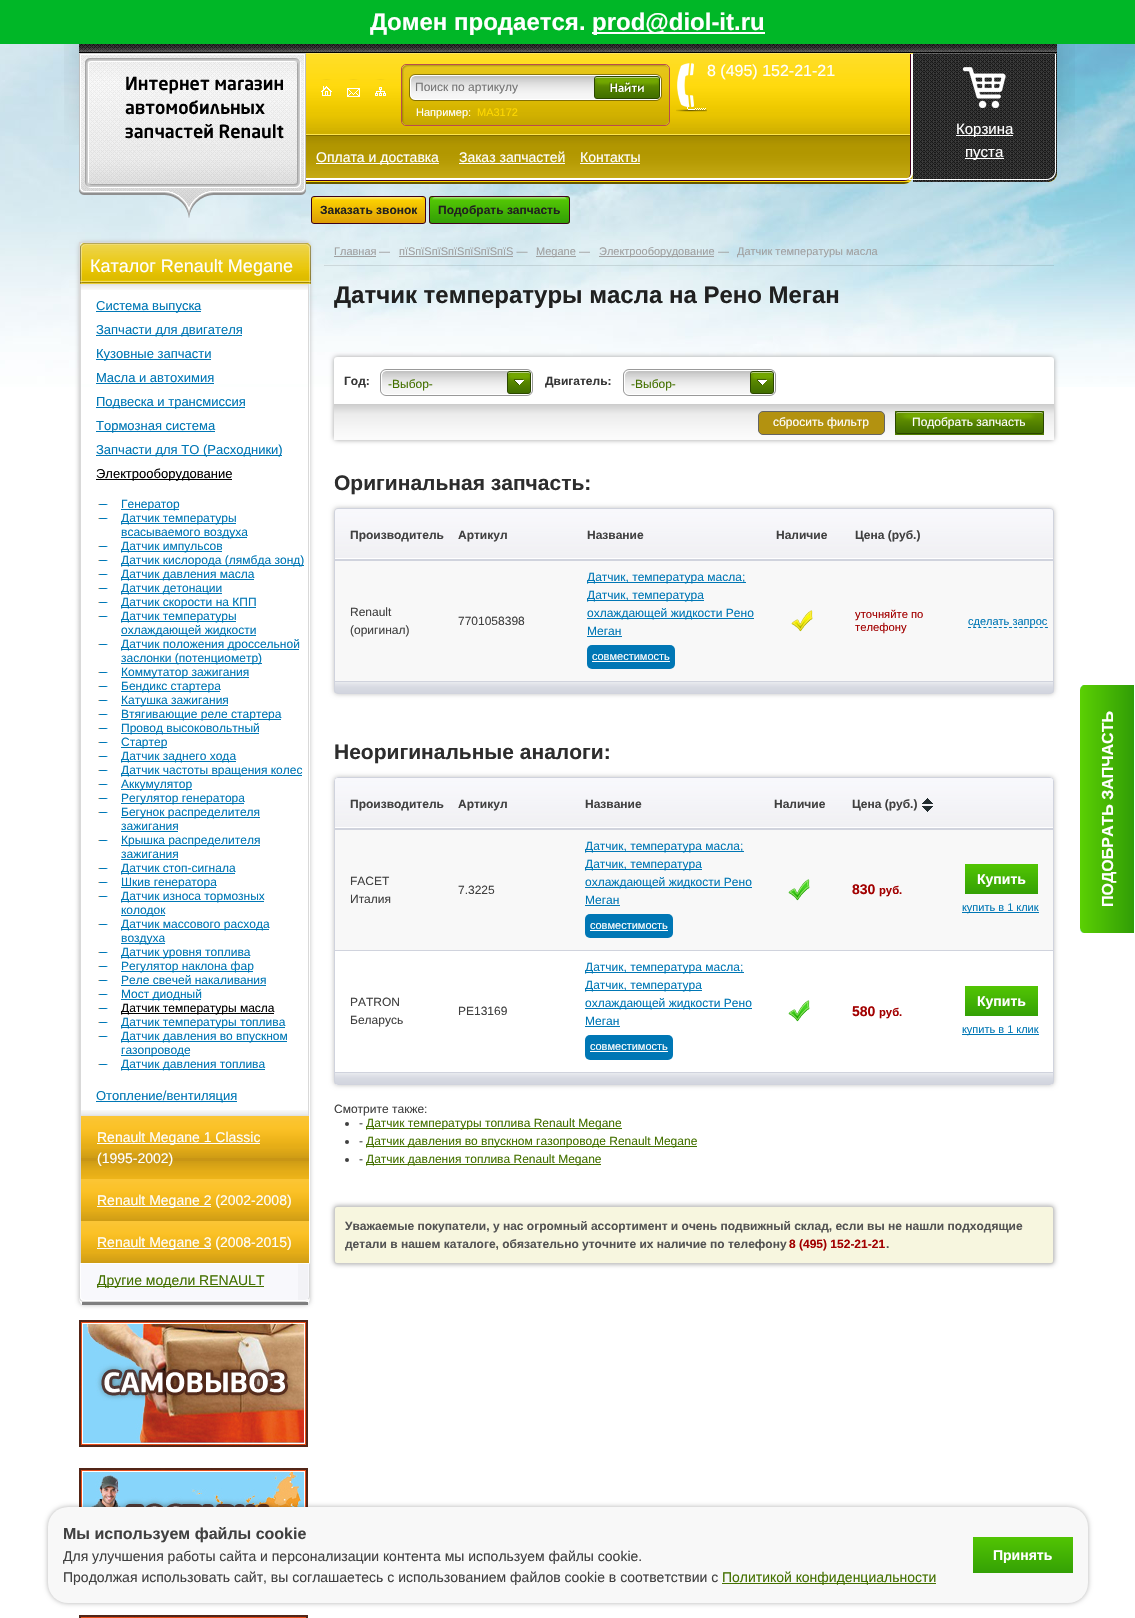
void draw(SkCanvas* canvas) {
	SkPaint paint;
	paint.setAntiAlias(true);
	auto svgPath = [&](const char* data, bool evenOdd = false) {
		SkPath result = *SkParsePath::FromSVGString(data);
		if (evenOdd) result.setFillType(SkPathFillType::kEvenOdd);
		return result;
	};
	canvas->clear(0xffffffff);
	canvas->drawImageRect(SkImages::DeferredFromEncodedData(SkData::MakeFromFileName("img1.png")), SkRect::MakeXYWH(0, 44, 1135, 343), SkSamplingOptions());
	canvas->drawImageRect(SkImages::DeferredFromEncodedData(SkData::MakeFromFileName("img2.png")), SkRect::MakeXYWH(64, 44, 1011, 101), SkSamplingOptions());
	paint.setColor(0xff00b727);
	canvas->drawRect(SkRect::MakeXYWH(0, 0, 1135, 44), paint);
	SkFont f1(fontMgr->matchFamilyStyle("Liberation Sans", SkFontStyle::Bold()), 24);
	f1.setSubpixel(true);
	paint.setColor(0xffffffff);
	canvas->drawString("Домен продается.", 370, 30, f1, paint);
	canvas->drawRect(SkRect::MakeXYWH(592, 32, 173, 2), paint);
	canvas->drawString("prod@diol-it.ru", 592, 30, f1, paint);
	paint.setColor(0xffffd800);
	canvas->drawPath(svgPath("M79 44H913V175C913 180 909 184 904 184H88C83 184 79 180 79 175Z"), paint);
	canvas->drawImageRect(SkImages::DeferredFromEncodedData(SkData::MakeFromFileName("img4.png")), SkRect::MakeXYWH(306, 53, 607, 131), SkSamplingOptions());
	paint.setColor(0xff40001f);
	canvas->drawPath(svgPath("M81 54H911V174C911 178 908 181 904 181H88C84 181 81 178 81 174ZM82 54H910V174C910 177 907 180 904 180H88C85 180 82 177 82 174Z", true), paint);
	paint.setColor(0xffffd800);
	canvas->drawPath(svgPath("M913 44H1057V173C1057 178 1053 182 1048 182H913Z"), paint);
	canvas->drawImageRect(SkImages::DeferredFromEncodedData(SkData::MakeFromFileName("img12.png")), SkRect::MakeXYWH(913, 53, 144, 129), SkSamplingOptions());
	paint.setColor(0xffffffff);
	canvas->drawPath(svgPath("M909 54H1056V171C1056 176 1052 180 1047 180H909ZM909 54H1055V171C1055 175 1051 179 1047 179H909Z", true), paint);
	canvas->drawPath(svgPath("M82 54H913V173C913 177 910 180 906 180H89C85 180 82 177 82 173ZM84 54H911V173C911 176 909 178 906 178H89C86 178 84 176 84 173Z", true), paint);
	canvas->drawImageRect(SkImages::DeferredFromEncodedData(SkData::MakeFromFileName("img5.png")), SkRect::MakeXYWH(79, 53, 227, 165), SkSamplingOptions());
	canvas->drawImageRect(SkImages::DeferredFromEncodedData(SkData::MakeFromFileName("img3.png")), SkRect::MakeXYWH(79, 44, 978, 10), SkSamplingOptions());
	SkFont f2(fontMgr->matchFamilyStyle("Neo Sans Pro", SkFontStyle(500, SkFontStyle::kNormal_Width, SkFontStyle::kUpright_Slant)), 18);
	f2.setSubpixel(true);
	paint.setColor(0xff000000);
	canvas->drawString("Интернет магазин", 125, 90, f2, paint);
	canvas->drawString("автомобильных", 125, 114, f2, paint);
	canvas->drawString("запчастей Renault", 125, 138, f2, paint);
	canvas->drawImageRect(SkImages::DeferredFromEncodedData(SkData::MakeFromFileName("img6.png")), SkRect::MakeXYWH(676, 63, 31, 49), SkSamplingOptions());
	SkFont f3(fontMgr->matchFamilyStyle("Liberation Sans", SkFontStyle::Normal()), 16);
	f3.setSubpixel(true);
	paint.setColor(0xffffffff);
	canvas->drawString("8 (495) 152-21-21", 707, 76, f3, paint);
	canvas->drawImageRect(SkImages::DeferredFromEncodedData(SkData::MakeFromFileName("img7.png")), SkRect::MakeXYWH(321, 79, 11, 17), SkSamplingOptions());
	canvas->drawImageRect(SkImages::DeferredFromEncodedData(SkData::MakeFromFileName("img8.png")), SkRect::MakeXYWH(347, 79, 13, 18), SkSamplingOptions());
	canvas->drawImageRect(SkImages::DeferredFromEncodedData(SkData::MakeFromFileName("img9.png")), SkRect::MakeXYWH(375, 79, 11, 17), SkSamplingOptions());
	canvas->drawImageRect(SkImages::DeferredFromEncodedData(SkData::MakeFromFileName("img10.png")), SkRect::MakeXYWH(402, 65, 267, 60), SkSamplingOptions());
	paint.setStroke(true);
	paint.setStrokeWidth(1);
	paint.setColor(0xffb94c4c);
	canvas->drawRoundRect(SkRect::MakeXYWH(401.5, 64.5, 268, 61), 4.5, 4.5, paint);
	canvas->drawImageRect(SkImages::DeferredFromEncodedData(SkData::MakeFromFileName("img11.png")), SkRect::MakeXYWH(409, 74, 253, 27), SkSamplingOptions());
	SkFont f4(fontMgr->matchFamilyStyle("Liberation Sans", SkFontStyle::Normal()), 12);
	f4.setSubpixel(true);
	paint.setStroke(false);
	paint.setColor(0xff757575);
	canvas->drawString("Поиск по артикулу", 415, 91, f4, paint);
	SkFont f5(fontMgr->matchFamilyStyle("Liberation Sans", SkFontStyle::Normal()), 11);
	f5.setSubpixel(true);
	paint.setColor(0xffffffff);
	canvas->drawString("Например:", 416, 116, f5, paint);
	paint.setColor(0xffffd800);
	canvas->drawString("MA3172", 477, 116, f5, paint);
	paint.setColor(0xffffffff);
	canvas->drawRect(SkRect::MakeXYWH(316, 163, 123, 1), paint);
	SkFont f6(fontMgr->matchFamilyStyle("Liberation Sans", SkFontStyle::Normal()), 14);
	f6.setSubpixel(true);
	canvas->drawString("Оплата и доставка", 316, 162, f6, paint);
	canvas->drawString("Заказ запчастей", 459, 162, f6, paint);
	canvas->drawRect(SkRect::MakeXYWH(459, 163, 106, 1), paint);
	canvas->drawString("Контакты", 580, 162, f6, paint);
	canvas->drawRect(SkRect::MakeXYWH(580, 163, 60, 1), paint);
	canvas->save();
	canvas->clipPath(svgPath("M314 196H423C424.5 196 426 197.5 426 199V221C426 222.5 424.5 224 423 224H314C312.5 224 311 222.5 311 221V199C311 197.5 312.5 196 314 196Z"), true);
	{
		const SkColor colors[] = {0xffffd700, 0xffdc9c05};
		const float stops[] = {0, 1};
		const SkPoint ends[] = {{369, 197}, {369, 223}};
		paint.setShader(SkGradientShader::MakeLinear(ends, colors, stops, 2, SkTileMode::kClamp));
		paint.setAlpha(255);
	}
	canvas->drawRect(SkRect::MakeXYWH(311, 197, 115, 26), paint);
	canvas->restore();
	paint.setStroke(true);
	paint.setShader(nullptr);
	paint.setColor(0xff3a001c);
	canvas->drawRoundRect(SkRect::MakeXYWH(311.5, 196.5, 114, 27), 2.5, 2.5, paint);
	paint.setStroke(false);
	{
		const SkColor colors[] = {0x80ffffff, 0x00ffffff};
		const float stops[] = {0, 1};
		const SkPoint ends[] = {{369, 197}, {369, 200}};
		paint.setShader(SkGradientShader::MakeLinear(ends, colors, stops, 2, SkTileMode::kClamp));
		paint.setAlpha(255);
	}
	canvas->drawPath(svgPath("M317 197H420C421.5 197 423 198.5 423 200H314C314 198.5 315.5 197 317 197Z"), paint);
	SkFont f7(fontMgr->matchFamilyStyle("Liberation Sans", SkFontStyle::Bold()), 12);
	f7.setSubpixel(true);
	paint.setShader(nullptr);
	paint.setColor(0xff202020);
	canvas->drawString("Заказать звонок", 320, 214, f7, paint);
	paint.setColor(0xff56cb03);
	canvas->drawRoundRect(SkRect::MakeXYWH(429, 196, 141, 28), 3, 3, paint);
	canvas->save();
	canvas->clipPath(svgPath("M432 196H567C568.5 196 570 197.5 570 199V221C570 222.5 568.5 224 567 224H432C430.5 224 429 222.5 429 221V199C429 197.5 430.5 196 432 196Z"), true);
	{
		const SkColor colors[] = {0xff329e06, 0x00329e06};
		const float stops[] = {0, 1};
		const SkPoint ends[] = {{500, 223}, {500, 197}};
		paint.setShader(SkGradientShader::MakeLinear(ends, colors, stops, 2, SkTileMode::kClamp));
		paint.setAlpha(255);
	}
	canvas->drawRect(SkRect::MakeXYWH(429, 198, 141, 25), paint);
	canvas->restore();
	paint.setStroke(true);
	paint.setShader(nullptr);
	paint.setColor(0xff40001f);
	canvas->drawRoundRect(SkRect::MakeXYWH(429.5, 196.5, 140, 27), 2.5, 2.5, paint);
	paint.setStroke(false);
	{
		const SkColor colors[] = {0x80ffffff, 0x00ffffff};
		const float stops[] = {0, 1};
		const SkPoint ends[] = {{500, 197}, {500, 200}};
		paint.setShader(SkGradientShader::MakeLinear(ends, colors, stops, 2, SkTileMode::kClamp));
		paint.setAlpha(255);
	}
	canvas->drawPath(svgPath("M435 197H564C565.5 197 567 198.5 567 200H432C432 198.5 433.5 197 435 197Z"), paint);
	paint.setShader(nullptr);
	paint.setColor(0xff202020);
	canvas->drawString("Подобрать запчасть", 438, 214, f7, paint);
	canvas->drawImageRect(SkImages::DeferredFromEncodedData(SkData::MakeFromFileName("img13.png")), SkRect::MakeXYWH(963, 67, 43, 41), SkSamplingOptions());
	paint.setColor(0xffffffff);
	canvas->drawRect(SkRect::MakeXYWH(956, 135, 57, 1), paint);
	SkFont f8(fontMgr->matchFamilyStyle("Liberation Sans", SkFontStyle::Normal()), 15);
	f8.setSubpixel(true);
	canvas->drawString("Корзина", 956, 134, f8, paint);
	canvas->drawRect(SkRect::MakeXYWH(965, 158, 39, 1), paint);
	canvas->drawString("пуста", 965, 157, f8, paint);
	canvas->save();
	canvas->clipPath(svgPath("M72 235H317V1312H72ZM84 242H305C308 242 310 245.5 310 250V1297C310 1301.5 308 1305 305 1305H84C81 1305 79 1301.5 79 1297V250C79 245.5 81 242 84 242Z", true), true);
	paint.setColor(0xffbebebe);
	paint.setMaskFilter(SkMaskFilter::MakeBlur(kNormal_SkBlurStyle, 2));
	canvas->drawRoundRect(SkRect::MakeXYWH(79, 242, 231, 1063), 5, 5, paint);
	paint.setMaskFilter(nullptr);
	canvas->restore();
	paint.setColor(0xff7f7f7f);
	canvas->drawRect(SkRect::MakeXYWH(82, 1302, 226, 3), paint);
	paint.setColor(0xffd9d9d9);
	canvas->drawPath(svgPath("M79 242H309V1297C309 1300 307 1302 304 1302H84C81 1302 79 1300 79 1297ZM80 243H309V1297C309 1299 307 1301 304 1301H84C82 1301 80 1299 80 1297Z", true), paint);
	paint.setColor(0xffffd800);
	canvas->drawPath(svgPath("M85 243H306C309 243 311 245 311 248V280H80V248C80 245 82 243 85 243Z"), paint);
	canvas->drawImageRect(SkImages::DeferredFromEncodedData(SkData::MakeFromFileName("img14.png")), SkRect::MakeXYWH(80, 243, 231, 37), SkSamplingOptions());
	SkFont f9(fontMgr->matchFamilyStyle("Liberation Sans", SkFontStyle::Normal()), 18);
	f9.setSubpixel(true);
	paint.setColor(0xffffffff);
	canvas->drawString("Каталог Renault Megane", 90, 272, f9, paint);
	paint.setColor(0xffffd800);
	canvas->drawRect(SkRect::MakeXYWH(80, 280, 231, 4), paint);
	canvas->drawImageRect(SkImages::DeferredFromEncodedData(SkData::MakeFromFileName("img15.png")), SkRect::MakeXYWH(80, 280, 231, 4), SkSamplingOptions());
	paint.setColor(0xffffffff);
	canvas->drawRect(SkRect::MakeXYWH(81, 284, 227, 100), paint);
	canvas->drawImageRect(SkImages::DeferredFromEncodedData(SkData::MakeFromFileName("img16.png")), SkRect::MakeXYWH(81, 284, 227, 6), SkSamplingOptions());
	paint.setColor(0xffd9d9d9);
	canvas->drawRect(SkRect::MakeXYWH(308, 284, 1, 832), paint);
	canvas->drawRect(SkRect::MakeXYWH(80, 284, 1, 979), paint);
	paint.setColor(0xff0077b5);
	canvas->drawRect(SkRect::MakeXYWH(96, 311, 105, 1), paint);
	SkFont f10(fontMgr->matchFamilyStyle("Liberation Sans", SkFontStyle::Normal()), 13);
	f10.setSubpixel(true);
	canvas->drawString("Система выпуска", 96, 310, f10, paint);
	canvas->drawRect(SkRect::MakeXYWH(96, 335, 146, 1), paint);
	canvas->drawString("Запчасти для двигателя", 96, 334, f10, paint);
	canvas->drawRect(SkRect::MakeXYWH(96, 359, 115, 1), paint);
	canvas->drawString("Кузовные запчасти", 96, 358, f10, paint);
	canvas->drawString("Масла и автохимия", 96, 382, f10, paint);
	canvas->drawRect(SkRect::MakeXYWH(96, 383, 118, 1), paint);
	canvas->drawRect(SkRect::MakeXYWH(96, 407, 149, 1), paint);
	canvas->drawString("Подвеска и трансмиссия", 96, 406, f10, paint);
	canvas->drawRect(SkRect::MakeXYWH(96, 431, 119, 1), paint);
	canvas->drawString("Тормозная система", 96, 430, f10, paint);
	canvas->drawRect(SkRect::MakeXYWH(96, 455, 186, 1), paint);
	canvas->drawString("Запчасти для ТО (Расходники)", 96, 454, f10, paint);
	paint.setColor(0xff000000);
	canvas->drawRect(SkRect::MakeXYWH(96, 479, 136, 1), paint);
	canvas->drawString("Электрооборудование", 96, 478, f10, paint);
	canvas->drawImageRect(SkImages::DeferredFromEncodedData(SkData::MakeFromFileName("img17.png")), SkRect::MakeXYWH(98, 504, 10, 1), SkSamplingOptions());
	paint.setColor(0xff0077b5);
	canvas->drawRect(SkRect::MakeXYWH(121, 509, 58, 1), paint);
	canvas->drawString("Генератор", 121, 508, f4, paint);
	canvas->drawImageRect(SkImages::DeferredFromEncodedData(SkData::MakeFromFileName("img17.png")), SkRect::MakeXYWH(98, 518, 10, 1), SkSamplingOptions());
	canvas->drawRect(SkRect::MakeXYWH(121, 523, 115, 1), paint);
	canvas->drawString("Датчик температуры", 121, 522, f4, paint);
	canvas->drawRect(SkRect::MakeXYWH(121, 537, 126, 1), paint);
	canvas->drawString("всасываемого воздуха", 121, 536, f4, paint);
	canvas->drawImageRect(SkImages::DeferredFromEncodedData(SkData::MakeFromFileName("img17.png")), SkRect::MakeXYWH(98, 546, 10, 1), SkSamplingOptions());
	canvas->drawRect(SkRect::MakeXYWH(121, 551, 101, 1), paint);
	canvas->drawString("Датчик импульсов", 121, 550, f4, paint);
	canvas->drawImageRect(SkImages::DeferredFromEncodedData(SkData::MakeFromFileName("img17.png")), SkRect::MakeXYWH(98, 560, 10, 1), SkSamplingOptions());
	canvas->drawRect(SkRect::MakeXYWH(121, 565, 183, 1), paint);
	canvas->drawString("Датчик кислорода (лямбда зонд)", 121, 564, f4, paint);
	canvas->drawImageRect(SkImages::DeferredFromEncodedData(SkData::MakeFromFileName("img17.png")), SkRect::MakeXYWH(98, 574, 10, 1), SkSamplingOptions());
	canvas->drawRect(SkRect::MakeXYWH(121, 579, 133, 1), paint);
	canvas->drawString("Датчик давления масла", 121, 578, f4, paint);
	canvas->drawImageRect(SkImages::DeferredFromEncodedData(SkData::MakeFromFileName("img17.png")), SkRect::MakeXYWH(98, 588, 10, 1), SkSamplingOptions());
	canvas->drawRect(SkRect::MakeXYWH(121, 593, 101, 1), paint);
	canvas->drawString("Датчик детонации", 121, 592, f4, paint);
	canvas->drawImageRect(SkImages::DeferredFromEncodedData(SkData::MakeFromFileName("img17.png")), SkRect::MakeXYWH(98, 602, 10, 1), SkSamplingOptions());
	canvas->drawRect(SkRect::MakeXYWH(121, 607, 135, 1), paint);
	canvas->drawString("Датчик скорости на КПП", 121, 606, f4, paint);
	canvas->drawImageRect(SkImages::DeferredFromEncodedData(SkData::MakeFromFileName("img17.png")), SkRect::MakeXYWH(98, 616, 10, 1), SkSamplingOptions());
	canvas->drawRect(SkRect::MakeXYWH(121, 621, 115, 1), paint);
	canvas->drawString("Датчик температуры", 121, 620, f4, paint);
	canvas->drawRect(SkRect::MakeXYWH(121, 635, 135, 1), paint);
	canvas->drawString("охлаждающей жидкости", 121, 634, f4, paint);
	canvas->drawImageRect(SkImages::DeferredFromEncodedData(SkData::MakeFromFileName("img17.png")), SkRect::MakeXYWH(98, 644, 10, 1), SkSamplingOptions());
	canvas->drawRect(SkRect::MakeXYWH(121, 649, 178, 1), paint);
	canvas->drawString("Датчик положения дроссельной", 121, 648, f4, paint);
	canvas->drawRect(SkRect::MakeXYWH(121, 663, 141, 1), paint);
	canvas->drawString("заслонки (потенциометр)", 121, 662, f4, paint);
	canvas->drawImageRect(SkImages::DeferredFromEncodedData(SkData::MakeFromFileName("img17.png")), SkRect::MakeXYWH(98, 672, 10, 1), SkSamplingOptions());
	canvas->drawRect(SkRect::MakeXYWH(121, 677, 128, 1), paint);
	canvas->drawString("Коммутатор зажигания", 121, 676, f4, paint);
	canvas->drawImageRect(SkImages::DeferredFromEncodedData(SkData::MakeFromFileName("img17.png")), SkRect::MakeXYWH(98, 686, 10, 1), SkSamplingOptions());
	canvas->drawRect(SkRect::MakeXYWH(121, 691, 99, 1), paint);
	canvas->drawString("Бендикс стартера", 121, 690, f4, paint);
	canvas->drawImageRect(SkImages::DeferredFromEncodedData(SkData::MakeFromFileName("img17.png")), SkRect::MakeXYWH(98, 700, 10, 1), SkSamplingOptions());
	canvas->drawRect(SkRect::MakeXYWH(121, 705, 107, 1), paint);
	canvas->drawString("Катушка зажигания", 121, 704, f4, paint);
	canvas->drawImageRect(SkImages::DeferredFromEncodedData(SkData::MakeFromFileName("img17.png")), SkRect::MakeXYWH(98, 714, 10, 1), SkSamplingOptions());
	canvas->drawRect(SkRect::MakeXYWH(121, 719, 160, 1), paint);
	canvas->drawString("Втягивающие реле стартера", 121, 718, f4, paint);
	canvas->drawImageRect(SkImages::DeferredFromEncodedData(SkData::MakeFromFileName("img17.png")), SkRect::MakeXYWH(98, 728, 10, 1), SkSamplingOptions());
	canvas->drawRect(SkRect::MakeXYWH(121, 733, 138, 1), paint);
	canvas->drawString("Провод высоковольтный", 121, 732, f4, paint);
	canvas->drawImageRect(SkImages::DeferredFromEncodedData(SkData::MakeFromFileName("img17.png")), SkRect::MakeXYWH(98, 742, 10, 1), SkSamplingOptions());
	canvas->drawRect(SkRect::MakeXYWH(121, 747, 46, 1), paint);
	canvas->drawString("Стартер", 121, 746, f4, paint);
	canvas->drawImageRect(SkImages::DeferredFromEncodedData(SkData::MakeFromFileName("img17.png")), SkRect::MakeXYWH(98, 756, 10, 1), SkSamplingOptions());
	canvas->drawRect(SkRect::MakeXYWH(121, 761, 115, 1), paint);
	canvas->drawString("Датчик заднего хода", 121, 760, f4, paint);
	canvas->drawImageRect(SkImages::DeferredFromEncodedData(SkData::MakeFromFileName("img17.png")), SkRect::MakeXYWH(98, 770, 10, 1), SkSamplingOptions());
	canvas->drawRect(SkRect::MakeXYWH(121, 775, 181, 1), paint);
	canvas->drawString("Датчик частоты вращения колес", 121, 774, f4, paint);
	canvas->drawImageRect(SkImages::DeferredFromEncodedData(SkData::MakeFromFileName("img17.png")), SkRect::MakeXYWH(98, 784, 10, 1), SkSamplingOptions());
	canvas->drawRect(SkRect::MakeXYWH(121, 789, 71, 1), paint);
	canvas->drawString("Аккумулятор", 121, 788, f4, paint);
	canvas->drawImageRect(SkImages::DeferredFromEncodedData(SkData::MakeFromFileName("img17.png")), SkRect::MakeXYWH(98, 798, 10, 1), SkSamplingOptions());
	canvas->drawRect(SkRect::MakeXYWH(121, 803, 123, 1), paint);
	canvas->drawString("Регулятор генератора", 121, 802, f4, paint);
	canvas->drawImageRect(SkImages::DeferredFromEncodedData(SkData::MakeFromFileName("img17.png")), SkRect::MakeXYWH(98, 812, 10, 1), SkSamplingOptions());
	canvas->drawRect(SkRect::MakeXYWH(121, 817, 139, 1), paint);
	canvas->drawString("Бегунок распределителя", 121, 816, f4, paint);
	canvas->drawString("зажигания", 121, 830, f4, paint);
	canvas->drawRect(SkRect::MakeXYWH(121, 831, 57, 1), paint);
	canvas->drawImageRect(SkImages::DeferredFromEncodedData(SkData::MakeFromFileName("img17.png")), SkRect::MakeXYWH(98, 840, 10, 1), SkSamplingOptions());
	canvas->drawRect(SkRect::MakeXYWH(121, 845, 139, 1), paint);
	canvas->drawString("Крышка распределителя", 121, 844, f4, paint);
	canvas->drawString("зажигания", 121, 858, f4, paint);
	canvas->drawRect(SkRect::MakeXYWH(121, 859, 57, 1), paint);
	canvas->drawImageRect(SkImages::DeferredFromEncodedData(SkData::MakeFromFileName("img17.png")), SkRect::MakeXYWH(98, 868, 10, 1), SkSamplingOptions());
	canvas->drawRect(SkRect::MakeXYWH(121, 873, 114, 1), paint);
	canvas->drawString("Датчик стоп-сигнала", 121, 872, f4, paint);
	canvas->drawImageRect(SkImages::DeferredFromEncodedData(SkData::MakeFromFileName("img17.png")), SkRect::MakeXYWH(98, 882, 10, 1), SkSamplingOptions());
	canvas->drawRect(SkRect::MakeXYWH(121, 887, 95, 1), paint);
	canvas->drawString("Шкив генератора", 121, 886, f4, paint);
	canvas->drawImageRect(SkImages::DeferredFromEncodedData(SkData::MakeFromFileName("img17.png")), SkRect::MakeXYWH(98, 896, 10, 1), SkSamplingOptions());
	canvas->drawRect(SkRect::MakeXYWH(121, 901, 143, 1), paint);
	canvas->drawString("Датчик износа тормозных", 121, 900, f4, paint);
	canvas->drawRect(SkRect::MakeXYWH(121, 915, 44, 1), paint);
	canvas->drawString("колодок", 121, 914, f4, paint);
	canvas->drawImageRect(SkImages::DeferredFromEncodedData(SkData::MakeFromFileName("img17.png")), SkRect::MakeXYWH(98, 924, 10, 1), SkSamplingOptions());
	canvas->drawRect(SkRect::MakeXYWH(121, 929, 148, 1), paint);
	canvas->drawString("Датчик массового расхода", 121, 928, f4, paint);
	canvas->drawRect(SkRect::MakeXYWH(121, 943, 44, 1), paint);
	canvas->drawString("воздуха", 121, 942, f4, paint);
	canvas->drawImageRect(SkImages::DeferredFromEncodedData(SkData::MakeFromFileName("img17.png")), SkRect::MakeXYWH(98, 952, 10, 1), SkSamplingOptions());
	canvas->drawRect(SkRect::MakeXYWH(121, 957, 129, 1), paint);
	canvas->drawString("Датчик уровня топлива", 121, 956, f4, paint);
	canvas->drawImageRect(SkImages::DeferredFromEncodedData(SkData::MakeFromFileName("img17.png")), SkRect::MakeXYWH(98, 966, 10, 1), SkSamplingOptions());
	canvas->drawRect(SkRect::MakeXYWH(121, 971, 132, 1), paint);
	canvas->drawString("Регулятор наклона фар", 121, 970, f4, paint);
	canvas->drawImageRect(SkImages::DeferredFromEncodedData(SkData::MakeFromFileName("img17.png")), SkRect::MakeXYWH(98, 980, 10, 1), SkSamplingOptions());
	canvas->drawString("Реле свечей накаливания", 121, 984, f4, paint);
	canvas->drawRect(SkRect::MakeXYWH(121, 985, 145, 1), paint);
	canvas->drawImageRect(SkImages::DeferredFromEncodedData(SkData::MakeFromFileName("img17.png")), SkRect::MakeXYWH(98, 994, 10, 1), SkSamplingOptions());
	canvas->drawRect(SkRect::MakeXYWH(121, 999, 80, 1), paint);
	canvas->drawString("Мост диодный", 121, 998, f4, paint);
	canvas->drawImageRect(SkImages::DeferredFromEncodedData(SkData::MakeFromFileName("img17.png")), SkRect::MakeXYWH(98, 1008, 10, 1), SkSamplingOptions());
	paint.setColor(0xff000000);
	canvas->drawRect(SkRect::MakeXYWH(121, 1013, 153, 1), paint);
	canvas->drawString("Датчик температуры масла", 121, 1012, f4, paint);
	canvas->drawImageRect(SkImages::DeferredFromEncodedData(SkData::MakeFromFileName("img17.png")), SkRect::MakeXYWH(98, 1022, 10, 1), SkSamplingOptions());
	paint.setColor(0xff0077b5);
	canvas->drawRect(SkRect::MakeXYWH(121, 1027, 164, 1), paint);
	canvas->drawString("Датчик температуры топлива", 121, 1026, f4, paint);
	canvas->drawImageRect(SkImages::DeferredFromEncodedData(SkData::MakeFromFileName("img17.png")), SkRect::MakeXYWH(98, 1036, 10, 1), SkSamplingOptions());
	canvas->drawRect(SkRect::MakeXYWH(121, 1041, 166, 1), paint);
	canvas->drawString("Датчик давления во впускном", 121, 1040, f4, paint);
	canvas->drawRect(SkRect::MakeXYWH(121, 1055, 69, 1), paint);
	canvas->drawString("газопроводе", 121, 1054, f4, paint);
	canvas->drawImageRect(SkImages::DeferredFromEncodedData(SkData::MakeFromFileName("img17.png")), SkRect::MakeXYWH(98, 1064, 10, 1), SkSamplingOptions());
	canvas->drawRect(SkRect::MakeXYWH(121, 1069, 144, 1), paint);
	canvas->drawString("Датчик давления топлива", 121, 1068, f4, paint);
	canvas->drawRect(SkRect::MakeXYWH(96, 1101, 141, 1), paint);
	canvas->drawString("Отопление/вентиляция", 96, 1100, f10, paint);
	canvas->drawImageRect(SkImages::DeferredFromEncodedData(SkData::MakeFromFileName("img18.png")), SkRect::MakeXYWH(81, 1110, 227, 6), SkSamplingOptions());
	canvas->drawImageRect(SkImages::DeferredFromEncodedData(SkData::MakeFromFileName("img19.png")), SkRect::MakeXYWH(81, 1116, 228, 63), SkSamplingOptions());
	paint.setColor(0xffffffff);
	canvas->drawRect(SkRect::MakeXYWH(97, 1143, 163, 1), paint);
	canvas->drawString("Renault Megane 1 Classic", 97, 1142, f6, paint);
	canvas->drawString("(1995-2002)", 97, 1163, f6, paint);
	canvas->drawImageRect(SkImages::DeferredFromEncodedData(SkData::MakeFromFileName("img20.png")), SkRect::MakeXYWH(81, 1179, 228, 42), SkSamplingOptions());
	canvas->drawRect(SkRect::MakeXYWH(97, 1206, 114, 1), paint);
	canvas->drawString("Renault Megane 2 (2002-2008)", 97, 1205, f6, paint);
	canvas->drawImageRect(SkImages::DeferredFromEncodedData(SkData::MakeFromFileName("img20.png")), SkRect::MakeXYWH(81, 1221, 228, 42), SkSamplingOptions());
	canvas->drawRect(SkRect::MakeXYWH(97, 1248, 114, 1), paint);
	canvas->drawString("Renault Megane 3 (2008-2015)", 97, 1247, f6, paint);
	paint.setColor(0xfff8f8fc);
	canvas->drawPath(svgPath("M80 1263H310V1296C310 1299 308 1301 305 1301H85C82 1301 80 1299 80 1296Z"), paint);
	paint.setColor(0xfff2f2f6);
	canvas->drawRect(SkRect::MakeXYWH(298, 1264, 10, 37), paint);
	paint.setColor(0xffffffff);
	canvas->drawPath(svgPath("M80 1263L81 1264H309L310 1263Z"), paint);
	paint.setColor(0xffd9d9d9);
	canvas->drawPath(svgPath("M310 1263L309 1264V1296C309 1297 308.5 1298 308 1299L308.5 1299.5C309.5 1299 310 1297.5 310 1296Z"), paint);
	paint.setColor(0xffffffff);
	canvas->drawPath(svgPath("M85 1301H305C306 1301 308 1300 309 1300L308 1299L305 1300H85L82 1299L81 1300C82 1300 84 1301 85 1301Z"), paint);
	canvas->drawPath(svgPath("M81 1264L80 1263V1296C80 1297.5 80.5 1299 81.5 1299.5L82 1299C81.5 1298 81 1297 81 1296Z"), paint);
	paint.setColor(0xff447100);
	canvas->drawRect(SkRect::MakeXYWH(97, 1286, 167, 1), paint);
	canvas->drawString("Другие модели RENAULT", 97, 1285, f6, paint);
	canvas->drawImageRect(SkImages::DeferredFromEncodedData(SkData::MakeFromFileName("img21.png")), SkRect::MakeXYWH(79, 1320, 229, 298), SkSamplingOptions());
	paint.setColor(0x1a000000);
	canvas->drawRect(SkRect::MakeXYWH(324, 265, 730, 1), paint);
	paint.setColor(0xffa0a0a0);
	canvas->drawString("Главная", 334, 255, f5, paint);
	canvas->drawRect(SkRect::MakeXYWH(334, 256, 42, 1), paint);
	canvas->drawString("—", 379, 255, f5, paint);
	canvas->drawString("пїЅпїЅпїЅпїЅпїЅпїЅпїЅ —", 399, 255, f5, paint);
	canvas->drawRect(SkRect::MakeXYWH(399, 256, 114, 1), paint);
	canvas->drawRect(SkRect::MakeXYWH(536, 256, 40, 1), paint);
	canvas->drawString("Megane", 536, 255, f5, paint);
	canvas->drawString("—", 579, 255, f5, paint);
	canvas->drawRect(SkRect::MakeXYWH(599, 256, 115, 1), paint);
	canvas->drawString("Электрооборудование", 599, 255, f5, paint);
	canvas->drawString("—", 718, 255, f5, paint);
	canvas->drawString("Датчик температуры масла", 737, 255, f5, paint);
	paint.setColor(0xff202020);
	canvas->drawString("Датчик температуры масла на Рено Меган", 334, 303, f1, paint);
	paint.setColor(0xffa1a1a1);
	paint.setMaskFilter(SkMaskFilter::MakeBlur(kNormal_SkBlurStyle, 2.5));
	canvas->drawRoundRect(SkRect::MakeXYWH(334, 357, 720, 83), 3, 3, paint);
	paint.setMaskFilter(nullptr);
	paint.setColor(0xffffffff);
	canvas->drawRoundRect(SkRect::MakeXYWH(334, 357, 720, 83), 3, 3, paint);
	paint.setColor(0xff363636);
	canvas->drawString("Год:", 344, 385, f7, paint);
	canvas->drawImageRect(SkImages::DeferredFromEncodedData(SkData::MakeFromFileName("img22.png")), SkRect::MakeXYWH(380, 369, 153, 27), SkSamplingOptions());
	paint.setColor(0xff447100);
	canvas->drawString("-Выбор-", 388, 388, f4, paint);
	paint.setColor(0xff363636);
	canvas->drawString("Двигатель:", 545, 385, f7, paint);
	canvas->drawImageRect(SkImages::DeferredFromEncodedData(SkData::MakeFromFileName("img22.png")), SkRect::MakeXYWH(623, 369, 153, 27), SkSamplingOptions());
	paint.setColor(0xff447100);
	canvas->drawString("-Выбор-", 631, 388, f4, paint);
	canvas->drawImageRect(SkImages::DeferredFromEncodedData(SkData::MakeFromFileName("img23.png")), SkRect::MakeXYWH(334, 404, 720, 36), SkSamplingOptions());
	paint.setColor(0xffb39210);
	canvas->drawRoundRect(SkRect::MakeXYWH(758.5, 411.5, 126, 23), 4.5, 4.5, paint);
	paint.setStroke(true);
	paint.setColor(0xff646464);
	canvas->drawRoundRect(SkRect::MakeXYWH(758.5, 411.5, 126, 23), 4.5, 4.5, paint);
	paint.setStroke(false);
	paint.setColor(0xffffffff);
	canvas->drawString("сбросить фильтр", 773, 426, f4, paint);
	paint.setColor(0xff507d00);
	canvas->drawRect(SkRect::MakeXYWH(895, 411, 149, 24), paint);
	canvas->drawImageRect(SkImages::DeferredFromEncodedData(SkData::MakeFromFileName("img24.png")), SkRect::MakeXYWH(895, 411, 149, 23), SkSamplingOptions());
	paint.setColor(0xffffffff);
	canvas->drawString("Подобрать запчасть", 912, 426, f4, paint);
	SkFont f11(fontMgr->matchFamilyStyle("Liberation Sans", SkFontStyle::Bold()), 21);
	f11.setSubpixel(true);
	paint.setColor(0xff2d2d2d);
	canvas->drawString("Оригинальная запчасть:", 334, 490, f11, paint);
	paint.setColor(0xffc1c1c1);
	paint.setMaskFilter(SkMaskFilter::MakeBlur(kNormal_SkBlurStyle, 2.5));
	canvas->drawRoundRect(SkRect::MakeXYWH(334, 508, 720, 186), 4, 4, paint);
	paint.setMaskFilter(nullptr);
	canvas->drawImageRect(SkImages::DeferredFromEncodedData(SkData::MakeFromFileName("img25.png")), SkRect::MakeXYWH(334, 682, 720, 11), SkSamplingOptions());
	paint.setStroke(true);
	paint.setColor(0xffd0d3dd);
	canvas->drawRoundRect(SkRect::MakeXYWH(334.5, 508.5, 719, 185), 3.5, 3.5, paint);
	canvas->drawImageRect(SkImages::DeferredFromEncodedData(SkData::MakeFromFileName("img26.png")), SkRect::MakeXYWH(335, 509, 118, 52), SkSamplingOptions());
	paint.setStroke(false);
	paint.setColor(0xff404040);
	canvas->drawString("Производитель", 350, 539, f7, paint);
	canvas->drawImageRect(SkImages::DeferredFromEncodedData(SkData::MakeFromFileName("img27.png")), SkRect::MakeXYWH(453, 509, 129, 52), SkSamplingOptions());
	canvas->drawString("Артикул", 458, 539, f7, paint);
	canvas->drawImageRect(SkImages::DeferredFromEncodedData(SkData::MakeFromFileName("img28.png")), SkRect::MakeXYWH(582, 509, 175, 52), SkSamplingOptions());
	canvas->drawString("Название", 587, 539, f7, paint);
	canvas->drawImageRect(SkImages::DeferredFromEncodedData(SkData::MakeFromFileName("img29.png")), SkRect::MakeXYWH(757, 509, 98, 52), SkSamplingOptions());
	canvas->drawString("Наличие", 776, 539, f7, paint);
	canvas->drawImageRect(SkImages::DeferredFromEncodedData(SkData::MakeFromFileName("img30.png")), SkRect::MakeXYWH(855, 509, 198, 52), SkSamplingOptions());
	canvas->drawString("Цена (руб.)", 855, 539, f7, paint);
	paint.setColor(0xfff8f8f8);
	canvas->drawRect(SkRect::MakeXYWH(335, 561, 718, 120), paint);
	paint.setColor(0xff404040);
	canvas->drawString("Renault", 350, 616, f4, paint);
	canvas->drawString("(оригинал)", 350, 634, f4, paint);
	canvas->drawString("7701058398", 458, 625, f4, paint);
	paint.setColor(0xff0077b5);
	canvas->drawRect(SkRect::MakeXYWH(587, 582, 159, 1), paint);
	canvas->drawString("Датчик, температура масла;", 587, 581, f4, paint);
	canvas->drawRect(SkRect::MakeXYWH(587, 600, 117, 1), paint);
	canvas->drawString("Датчик, температура", 587, 599, f4, paint);
	canvas->drawRect(SkRect::MakeXYWH(587, 618, 167, 1), paint);
	canvas->drawString("охлаждающей жидкости Рено", 587, 617, f4, paint);
	canvas->drawString("Меган", 587, 635, f4, paint);
	canvas->drawRect(SkRect::MakeXYWH(587, 636, 35, 1), paint);
	canvas->drawRoundRect(SkRect::MakeXYWH(587, 645, 88, 24), 5, 5, paint);
	paint.setColor(0xffffffff);
	canvas->drawString("совместимость", 592, 660, f5, paint);
	canvas->drawRect(SkRect::MakeXYWH(592, 661, 78, 1), paint);
	canvas->drawImageRect(SkImages::DeferredFromEncodedData(SkData::MakeFromFileName("img31.png")), SkRect::MakeXYWH(791, 610, 22, 22), SkSamplingOptions());
	SkFont f12(fontMgr->matchFamilyStyle("Liberation Sans", SkFontStyle::Normal()), 11.25);
	f12.setSubpixel(true);
	paint.setColor(0xffa20000);
	canvas->drawString("уточняйте по", 855, 618, f12, paint);
	canvas->drawString("телефону", 855, 631, f12, paint);
	paint.setColor(0xffd0d3dd);
	canvas->drawRect(SkRect::MakeXYWH(335, 681, 718, 1), paint);
	paint.setStroke(true);
	paint.setColor(0xff0077b5);
	paint.setPathEffect(SkDashPathEffect::Make({{3, 2.13f}}, 0));
	canvas->drawPath(svgPath("M968 627.5H1048"), paint);
	paint.setPathEffect(nullptr);
	paint.setStroke(false);
	canvas->drawString("сделать запрос", 968, 625, f5, paint);
	paint.setColor(0xff2d2d2d);
	canvas->drawString("Неоригинальные аналоги:", 334, 759, f11, paint);
	canvas->save();
	canvas->clipPath(svgPath("M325 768H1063V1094H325ZM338 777H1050C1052 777 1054 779 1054 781V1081C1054 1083 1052 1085 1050 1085H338C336 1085 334 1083 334 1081V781C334 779 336 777 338 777Z", true), true);
	paint.setColor(0xffc1c1c1);
	paint.setMaskFilter(SkMaskFilter::MakeBlur(kNormal_SkBlurStyle, 2.5));
	canvas->drawRoundRect(SkRect::MakeXYWH(334, 777, 720, 308), 4, 4, paint);
	paint.setMaskFilter(nullptr);
	canvas->restore();
	canvas->drawImageRect(SkImages::DeferredFromEncodedData(SkData::MakeFromFileName("img25.png")), SkRect::MakeXYWH(334, 1073, 720, 11), SkSamplingOptions());
	paint.setStroke(true);
	paint.setColor(0xffd0d3dd);
	canvas->drawRoundRect(SkRect::MakeXYWH(334.5, 777.5, 719, 307), 3.5, 3.5, paint);
	canvas->drawImageRect(SkImages::DeferredFromEncodedData(SkData::MakeFromFileName("img26.png")), SkRect::MakeXYWH(335, 778, 118, 52), SkSamplingOptions());
	paint.setStroke(false);
	paint.setColor(0xff404040);
	canvas->drawString("Производитель", 350, 808, f7, paint);
	canvas->drawImageRect(SkImages::DeferredFromEncodedData(SkData::MakeFromFileName("img32.png")), SkRect::MakeXYWH(453, 778, 127, 52), SkSamplingOptions());
	canvas->drawString("Артикул", 458, 808, f7, paint);
	canvas->drawImageRect(SkImages::DeferredFromEncodedData(SkData::MakeFromFileName("img28.png")), SkRect::MakeXYWH(580, 778, 175, 52), SkSamplingOptions());
	canvas->drawString("Название", 585, 808, f7, paint);
	canvas->drawImageRect(SkImages::DeferredFromEncodedData(SkData::MakeFromFileName("img33.png")), SkRect::MakeXYWH(755, 778, 97, 52), SkSamplingOptions());
	canvas->drawString("Наличие", 774, 808, f7, paint);
	canvas->drawImageRect(SkImages::DeferredFromEncodedData(SkData::MakeFromFileName("img34.png")), SkRect::MakeXYWH(852, 778, 201, 52), SkSamplingOptions());
	canvas->drawString("Цена (руб.)", 852, 808, f7, paint);
	canvas->drawImageRect(SkImages::DeferredFromEncodedData(SkData::MakeFromFileName("img35.png")), SkRect::MakeXYWH(922, 798, 11, 6), SkSamplingOptions());
	canvas->drawImageRect(SkImages::DeferredFromEncodedData(SkData::MakeFromFileName("img36.png")), SkRect::MakeXYWH(922, 806, 11, 6), SkSamplingOptions());
	paint.setColor(0xfff8f8f8);
	canvas->drawRect(SkRect::MakeXYWH(335, 830, 718, 120), paint);
	paint.setColor(0xff404040);
	canvas->drawString("FACET", 350, 885, f4, paint);
	canvas->drawString("Италия", 350, 903, f4, paint);
	canvas->drawString("7.3225", 458, 894, f4, paint);
	paint.setColor(0xff0077b5);
	canvas->drawRect(SkRect::MakeXYWH(585, 851, 159, 1), paint);
	canvas->drawString("Датчик, температура масла;", 585, 850, f4, paint);
	canvas->drawRect(SkRect::MakeXYWH(585, 869, 117, 1), paint);
	canvas->drawString("Датчик, температура", 585, 868, f4, paint);
	canvas->drawRect(SkRect::MakeXYWH(585, 887, 167, 1), paint);
	canvas->drawString("охлаждающей жидкости Рено", 585, 886, f4, paint);
	canvas->drawString("Меган", 585, 904, f4, paint);
	canvas->drawRect(SkRect::MakeXYWH(585, 905, 35, 1), paint);
	canvas->drawRoundRect(SkRect::MakeXYWH(585, 914, 88, 24), 5, 5, paint);
	paint.setColor(0xffffffff);
	canvas->drawString("совместимость", 590, 929, f5, paint);
	canvas->drawRect(SkRect::MakeXYWH(590, 930, 78, 1), paint);
	canvas->drawImageRect(SkImages::DeferredFromEncodedData(SkData::MakeFromFileName("img37.png")), SkRect::MakeXYWH(788, 879, 22, 22), SkSamplingOptions());
	SkFont f13(fontMgr->matchFamilyStyle("Liberation Sans", SkFontStyle::Bold()), 14);
	f13.setSubpixel(true);
	paint.setColor(0xffa20000);
	canvas->drawString("830", 852, 894, f13, paint);
	SkFont f14(fontMgr->matchFamilyStyle("Liberation Sans", SkFontStyle::Bold()), 11.25);
	f14.setSubpixel(true);
	canvas->drawString("руб.", 879, 894, f14, paint);
	paint.setColor(0xffd0d3dd);
	canvas->drawRect(SkRect::MakeXYWH(335, 950, 718, 1), paint);
	{
		const SkColor colors[] = {0xff52c503, 0xff34a005};
		const float stops[] = {0, 1};
		const SkPoint ends[] = {{1002, 864}, {1002, 894}};
		paint.setShader(SkGradientShader::MakeLinear(ends, colors, stops, 2, SkTileMode::kClamp));
		paint.setAlpha(255);
	}
	canvas->drawRect(SkRect::MakeXYWH(965, 864, 73, 30), paint);
	paint.setShader(nullptr);
	paint.setColor(0xffffffff);
	canvas->drawString("Купить", 977, 884, f13, paint);
	paint.setColor(0xff0077b5);
	canvas->drawRect(SkRect::MakeXYWH(962, 912, 77, 1), paint);
	canvas->drawString("купить в 1 клик", 962, 911, f5, paint);
	paint.setColor(0xff404040);
	canvas->drawString("PATRON", 350, 1006, f4, paint);
	canvas->drawString("Беларусь", 350, 1024, f4, paint);
	canvas->drawString("PE13169", 458, 1015, f4, paint);
	paint.setColor(0xff0077b5);
	canvas->drawRect(SkRect::MakeXYWH(585, 972, 159, 1), paint);
	canvas->drawString("Датчик, температура масла;", 585, 971, f4, paint);
	canvas->drawRect(SkRect::MakeXYWH(585, 990, 117, 1), paint);
	canvas->drawString("Датчик, температура", 585, 989, f4, paint);
	canvas->drawRect(SkRect::MakeXYWH(585, 1008, 167, 1), paint);
	canvas->drawString("охлаждающей жидкости Рено", 585, 1007, f4, paint);
	canvas->drawString("Меган", 585, 1025, f4, paint);
	canvas->drawRect(SkRect::MakeXYWH(585, 1026, 35, 1), paint);
	canvas->drawRoundRect(SkRect::MakeXYWH(585, 1035, 88, 25), 5, 5, paint);
	paint.setColor(0xffffffff);
	canvas->drawString("совместимость", 590, 1050, f5, paint);
	canvas->drawRect(SkRect::MakeXYWH(590, 1051, 78, 1), paint);
	canvas->drawImageRect(SkImages::DeferredFromEncodedData(SkData::MakeFromFileName("img38.png")), SkRect::MakeXYWH(788, 1000, 22, 22), SkSamplingOptions());
	paint.setColor(0xffa20000);
	canvas->drawString("580", 852, 1016, f13, paint);
	canvas->drawString("руб.", 879, 1016, f14, paint);
	paint.setColor(0xffd0d3dd);
	canvas->drawRect(SkRect::MakeXYWH(335, 1072, 718, 1), paint);
	{
		const SkColor colors[] = {0xff52c503, 0xff34a005};
		const float stops[] = {0, 1};
		const SkPoint ends[] = {{1002, 986}, {1002, 1016}};
		paint.setShader(SkGradientShader::MakeLinear(ends, colors, stops, 2, SkTileMode::kClamp));
		paint.setAlpha(255);
	}
	canvas->drawRect(SkRect::MakeXYWH(965, 986, 73, 30), paint);
	paint.setShader(nullptr);
	paint.setColor(0xffffffff);
	canvas->drawString("Купить", 977, 1006, f13, paint);
	paint.setColor(0xff0077b5);
	canvas->drawRect(SkRect::MakeXYWH(962, 1034, 77, 1), paint);
	canvas->drawString("купить в 1 клик", 962, 1033, f5, paint);
	paint.setColor(0xff404040);
	canvas->drawString("Смотрите также:", 334, 1113, f4, paint);
	canvas->drawCircle(347, 1124, 2, paint);
	canvas->drawString("-", 359, 1127, f4, paint);
	paint.setColor(0xff447100);
	canvas->drawRect(SkRect::MakeXYWH(366, 1128, 256, 1), paint);
	canvas->drawString("Датчик температуры топлива Renault Megane", 366, 1127, f4, paint);
	paint.setColor(0xff404040);
	canvas->drawCircle(347, 1142, 2, paint);
	canvas->drawString("-", 359, 1145, f4, paint);
	paint.setColor(0xff447100);
	canvas->drawRect(SkRect::MakeXYWH(366, 1146, 331, 1), paint);
	canvas->drawString("Датчик давления во впускном газопроводе Renault Megane", 366, 1145, f4, paint);
	paint.setColor(0xff404040);
	canvas->drawCircle(347, 1160, 2, paint);
	canvas->drawString("-", 359, 1163, f4, paint);
	paint.setColor(0xff447100);
	canvas->drawRect(SkRect::MakeXYWH(366, 1164, 235, 1), paint);
	canvas->drawString("Датчик давления топлива Renault Megane", 366, 1163, f4, paint);
	paint.setColor(0xffa1a1a1);
	paint.setMaskFilter(SkMaskFilter::MakeBlur(kNormal_SkBlurStyle, 2.5));
	canvas->drawRoundRect(SkRect::MakeXYWH(334, 1206, 720, 58), 3, 3, paint);
	paint.setMaskFilter(nullptr);
	paint.setColor(0xfff7f6df);
	canvas->drawRoundRect(SkRect::MakeXYWH(334.5, 1206.5, 719, 57), 2.5, 2.5, paint);
	paint.setStroke(true);
	paint.setColor(0xffcccccc);
	canvas->drawRoundRect(SkRect::MakeXYWH(334.5, 1206.5, 719, 57), 2.5, 2.5, paint);
	paint.setStroke(false);
	paint.setColor(0xff535353);
	canvas->drawString("Уважаемые покупатели, у нас огромный ассортимент и очень подвижный склад, если вы не нашли подходящие", 345, 1230, f7, paint);
	canvas->drawString("детали в нашем каталоге, обязательно уточните их наличие по телефону", 345, 1248, f7, paint);
	paint.setColor(0xffa20000);
	canvas->drawString("8 (495) 152-21-21", 789, 1248, f7, paint);
	paint.setColor(0xff535353);
	canvas->drawString(".", 886, 1248, f7, paint);
	{
		const SkColor colors[] = {0xff5bd003, 0xff309c06};
		const float stops[] = {0, 1};
		const SkPoint ends[] = {{1080, 809}, {1135, 809}};
		paint.setShader(SkGradientShader::MakeLinear(ends, colors, stops, 2, SkTileMode::kClamp));
		paint.setAlpha(255);
	}
	canvas->drawPath(svgPath("M1080 928V690C1080 687 1082 685 1084 685H1134V933H1084C1082 933 1080 931 1080 928Z"), paint);
	paint.setShader(nullptr);
	paint.setColor(0xff94d8fe);
	canvas->drawPath(svgPath("M1080 928V690C1080 687 1083 685 1086 685C1083 685 1080 686 1080 690V929C1080 932 1083 933 1086 933C1083 933 1080 931 1080 928Z"), paint);
	SkFont f15(fontMgr->matchFamilyStyle("Liberation Sans", SkFontStyle::Bold()), 16);
	f15.setSubpixel(true);
	paint.setColor(0xffffffff);
	canvas->save();
	canvas->rotate(-90, 1113, 907);
	canvas->drawString("ПОДОБРАТЬ ЗАПЧАСТЬ", 1113, 907, f15, paint);
	canvas->restore();
	paint.setColor(0x4d000000);
	paint.setMaskFilter(SkMaskFilter::MakeBlur(kNormal_SkBlurStyle, 2.5));
	canvas->drawRoundRect(SkRect::MakeXYWH(48, 1507, 1040, 96), 20, 20, paint);
	paint.setMaskFilter(nullptr);
	paint.setColor(0xfff8f8f8);
	canvas->drawRoundRect(SkRect::MakeXYWH(48, 1507, 1040, 96), 20, 20, paint);
	paint.setColor(0xff404040);
	canvas->drawString("Мы используем файлы cookie", 63, 1539, f15, paint);
	canvas->drawString("Для улучшения работы сайта и персонализации контента мы используем файлы cookie.", 63, 1561, f6, paint);
	canvas->drawString("Продолжая использовать сайт, вы соглашаетесь с использованием файлов cookie в соответствии с", 63, 1582, f6, paint);
	paint.setColor(0xff447100);
	canvas->drawRect(SkRect::MakeXYWH(722, 1583, 214, 1), paint);
	canvas->drawString("Политикой конфиденциальности", 722, 1582, f6, paint);
	{
		const SkColor colors[] = {0xff52c503, 0xff34a005};
		const float stops[] = {0, 1};
		const SkPoint ends[] = {{1023, 1537}, {1023, 1573}};
		paint.setShader(SkGradientShader::MakeLinear(ends, colors, stops, 2, SkTileMode::kClamp));
		paint.setAlpha(255);
	}
	canvas->drawRect(SkRect::MakeXYWH(973, 1537, 100, 36), paint);
	paint.setShader(nullptr);
	paint.setColor(0xffffffff);
	canvas->drawString("Принять", 993, 1560, f13, paint);
}
